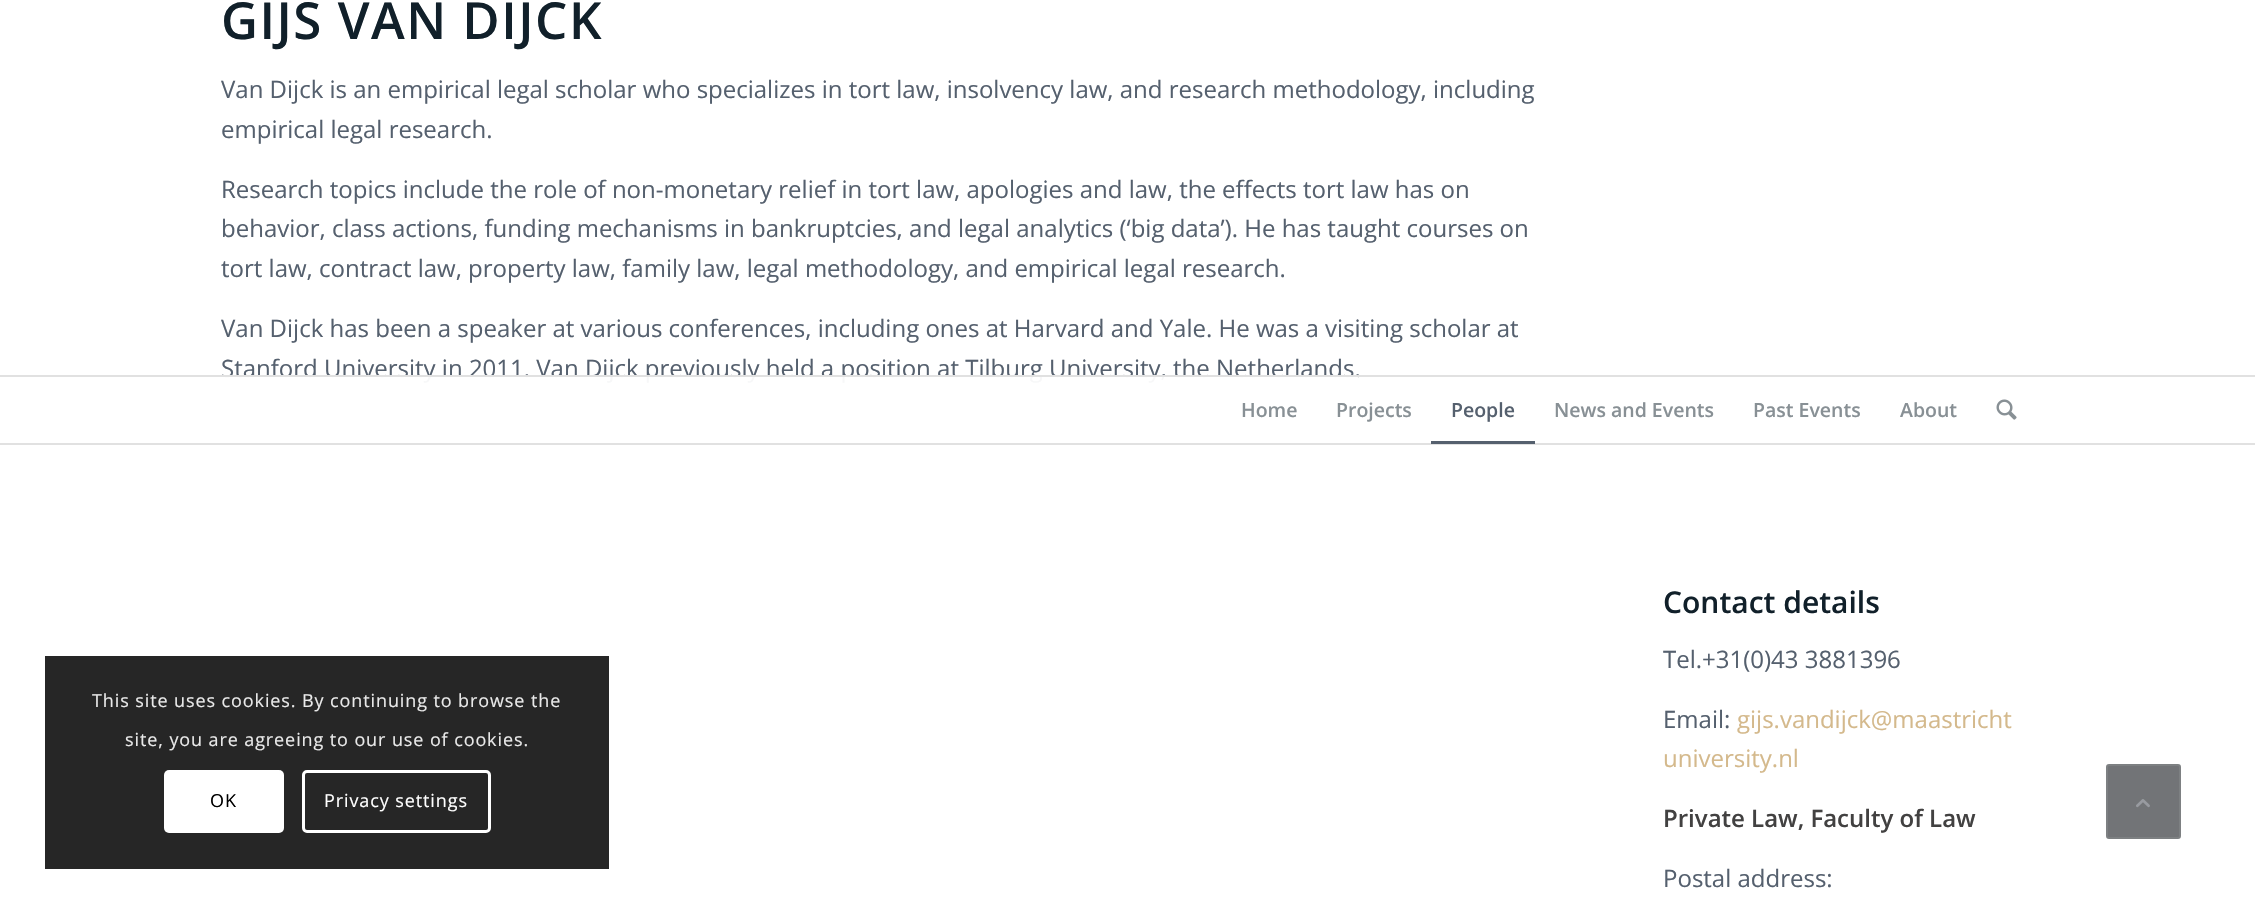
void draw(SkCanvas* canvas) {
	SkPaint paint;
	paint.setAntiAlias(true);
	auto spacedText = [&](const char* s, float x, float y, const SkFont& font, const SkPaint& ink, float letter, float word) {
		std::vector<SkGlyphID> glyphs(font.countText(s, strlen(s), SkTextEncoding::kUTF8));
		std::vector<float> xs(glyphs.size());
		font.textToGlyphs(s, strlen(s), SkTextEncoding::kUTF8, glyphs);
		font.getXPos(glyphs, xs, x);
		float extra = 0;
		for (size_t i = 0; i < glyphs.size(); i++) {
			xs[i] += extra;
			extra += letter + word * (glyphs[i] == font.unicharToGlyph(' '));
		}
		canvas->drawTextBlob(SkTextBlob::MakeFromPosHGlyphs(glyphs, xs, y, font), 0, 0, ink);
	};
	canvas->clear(0xffffffff);
	SkFont f1(fontMgr->matchFamilyStyle("Open Sans", SkFontStyle(600, SkFontStyle::kNormal_Width, SkFontStyle::kUpright_Slant)), 51);
	f1.setSubpixel(true);
	paint.setColor(0xff11202a);
	spacedText("GIJS VAN DIJCK", 221, 39, f1, paint, 1.5, 0);
	SkFont f2(fontMgr->matchFamilyStyle("Open Sans", SkFontStyle::Normal()), 24);
	f2.setSubpixel(true);
	paint.setColor(0xff55606e);
	canvas->drawString("Van Dijck is an empirical legal scholar who specializes in tort law, insolvency law, and research methodology, including", 221, 98, f2, paint);
	canvas->drawString("empirical legal research.", 221, 138, f2, paint);
	canvas->drawString("Research topics include the role of non-monetary relief in tort law, apologies and law, the effects tort law has on", 221, 198, f2, paint);
	canvas->drawString("behavior, class actions, funding mechanisms in bankruptcies, and legal analytics (‘big data’). He has taught courses on", 221, 237, f2, paint);
	canvas->drawString("tort law, contract law, property law, family law, legal methodology, and empirical legal research.", 221, 277, f2, paint);
	canvas->drawString("Van Dijck has been a speaker at various conferences, including ones at Harvard and Yale. He was a visiting scholar at", 221, 337, f2, paint);
	canvas->drawString("Stanford University in 2011. Van Dijck previously held a position at Tilburg University, the Netherlands.", 221, 377, f2, paint);
	SkFont f3(fontMgr->matchFamilyStyle("Open Sans", SkFontStyle(600, SkFontStyle::kNormal_Width, SkFontStyle::kUpright_Slant)), 30);
	f3.setSubpixel(true);
	paint.setColor(0xff11202a);
	canvas->drawString("Contact details", 1663, 613, f3, paint);
	paint.setColor(0xff55606e);
	canvas->drawString("Tel.+31(0)43 3881396", 1663, 668, f2, paint);
	canvas->drawString("Email:", 1663, 728, f2, paint);
	paint.setColor(0xffd4b98c);
	canvas->drawString("gijs.vandijck@maastricht", 1737, 728, f2, paint);
	canvas->drawString("university.nl", 1663, 767, f2, paint);
	SkFont f4(fontMgr->matchFamilyStyle("Open Sans", SkFontStyle(600, SkFontStyle::kNormal_Width, SkFontStyle::kUpright_Slant)), 24);
	f4.setSubpixel(true);
	paint.setColor(0xff424141);
	canvas->drawString("Private Law, Faculty of Law", 1663, 827, f4, paint);
	paint.setColor(0xff55606e);
	canvas->drawString("Postal address:", 1663, 887, f2, paint);
	paint.setColor(0xf2ffffff);
	canvas->drawRect(SkRect::MakeXYWH(224, 377, 1134, 6), paint);
	paint.setColor(0xffe1e1e1);
	canvas->drawRect(SkRect::MakeXYWH(0, 375, 2255, 2), paint);
	canvas->drawRect(SkRect::MakeXYWH(0, 443, 2255, 2), paint);
	SkFont f5(fontMgr->matchFamilyStyle("Open Sans", SkFontStyle(600, SkFontStyle::kNormal_Width, SkFontStyle::kUpright_Slant)), 19.5);
	f5.setSubpixel(true);
	paint.setColor(0xff889095);
	canvas->drawString("Home", 1241, 417, f5, paint);
	canvas->drawString("Projects", 1336, 417, f5, paint);
	paint.setColor(0xff55606e);
	canvas->drawString("People", 1451, 417, f5, paint);
	canvas->drawRect(SkRect::MakeXYWH(1431, 441, 104, 3), paint);
	paint.setColor(0xff889095);
	canvas->drawString("News and Events", 1554, 417, f5, paint);
	canvas->drawString("Past Events", 1753, 417, f5, paint);
	canvas->drawString("About", 1900, 417, f5, paint);
	canvas->drawImageRect(SkImages::DeferredFromEncodedData(SkData::MakeFromFileName("img1.png")), SkRect::MakeXYWH(1996, 399, 21, 21), SkSamplingOptions());
	paint.setColor(0xff262626);
	canvas->drawRect(SkRect::MakeXYWH(45, 656, 564, 213), paint);
	SkFont f6(fontMgr->matchFamilyStyle("Open Sans", SkFontStyle::Normal()), 18);
	f6.setSubpixel(true);
	paint.setColor(0xffe9e9e9);
	spacedText("This site uses cookies. By continuing to browse the", 92, 707, f6, paint, 0.9, 0);
	spacedText("site, you are agreeing to our use of cookies.", 125, 746, f6, paint, 0.9, 0);
	paint.setColor(0xffffffff);
	canvas->drawRoundRect(SkRect::MakeXYWH(164, 770, 120, 63), 5, 5, paint);
	paint.setColor(0xff000000);
	spacedText("OK", 210, 807, f6, paint, 0.9, 0);
	paint.setStroke(true);
	paint.setStrokeWidth(3);
	paint.setColor(0xffffffff);
	canvas->drawRoundRect(SkRect::MakeXYWH(303.5, 771.5, 186, 60), 3.5, 3.5, paint);
	paint.setStroke(false);
	spacedText("Privacy settings", 324, 807, f6, paint, 0.9, 0);
	paint.setColor(0xff727477);
	canvas->drawRoundRect(SkRect::MakeXYWH(2107, 765, 73, 73), 2, 2, paint);
	paint.setStroke(true);
	paint.setStrokeWidth(2);
	paint.setColor(0xff7d8082);
	canvas->drawRoundRect(SkRect::MakeXYWH(2107, 765, 73, 73), 2, 2, paint);
	canvas->drawImageRect(SkImages::DeferredFromEncodedData(SkData::MakeFromFileName("img2.png")), SkRect::MakeXYWH(2136, 799, 14, 9), SkSamplingOptions());
}
